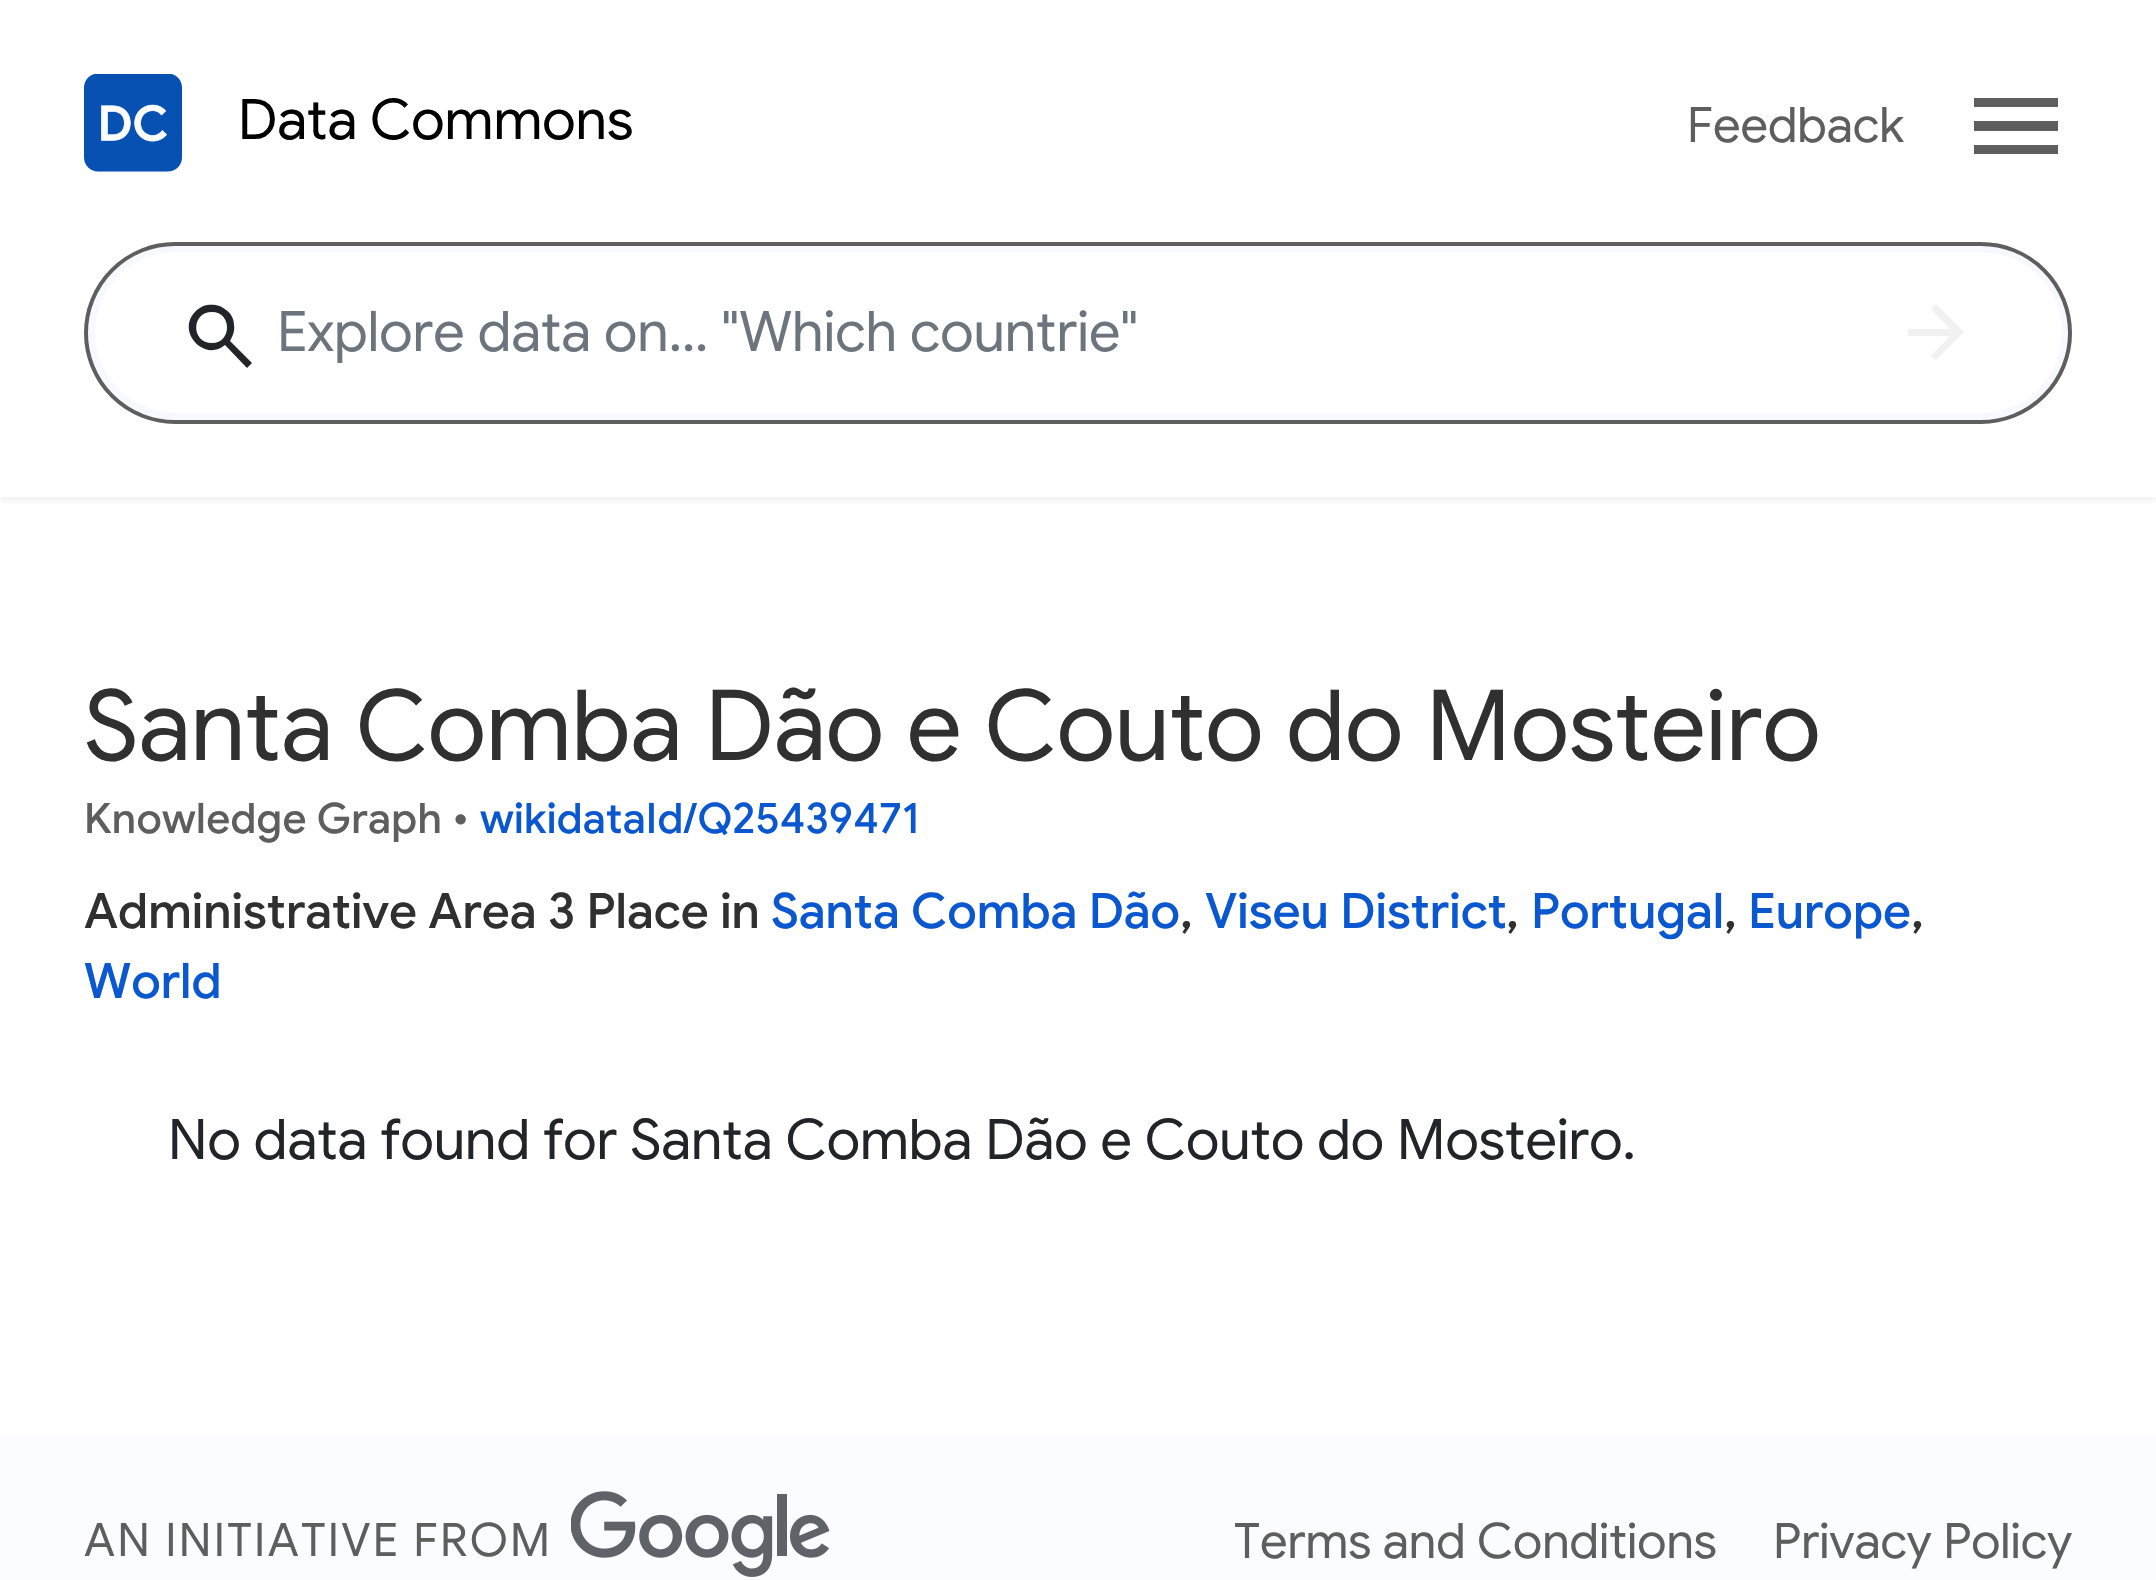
void draw(SkCanvas* canvas) {
	SkPaint paint;
	paint.setAntiAlias(true);
	auto spacedText = [&](const char* s, float x, float y, const SkFont& font, const SkPaint& ink, float letter, float word) {
		std::vector<SkGlyphID> glyphs(font.countText(s, strlen(s), SkTextEncoding::kUTF8));
		std::vector<float> xs(glyphs.size());
		font.textToGlyphs(s, strlen(s), SkTextEncoding::kUTF8, glyphs);
		font.getXPos(glyphs, xs, x);
		float extra = 0;
		for (size_t i = 0; i < glyphs.size(); i++) {
			xs[i] += extra;
			extra += letter + word * (glyphs[i] == font.unicharToGlyph(' '));
		}
		canvas->drawTextBlob(SkTextBlob::MakeFromPosHGlyphs(glyphs, xs, y, font), 0, 0, ink);
	};
	auto svgPath = [&](const char* data, bool evenOdd = false) {
		SkPath result = *SkParsePath::FromSVGString(data);
		if (evenOdd) result.setFillType(SkPathFillType::kEvenOdd);
		return result;
	};
	canvas->clear(0xffffffff);
	canvas->save();
	canvas->clipRect(SkRect::MakeXYWH(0, 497, 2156, 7));
	paint.setColor(0x1a5e5e5e);
	paint.setMaskFilter(SkMaskFilter::MakeBlur(kNormal_SkBlurStyle, 3.5));
	canvas->drawRect(SkRect::MakeXYWH(0, 4, 2156, 497), paint);
	paint.setMaskFilter(nullptr);
	canvas->restore();
	canvas->drawImageRect(SkImages::DeferredFromEncodedData(SkData::MakeFromFileName("img1.png")), SkRect::MakeXYWH(84, 74, 98, 98), SkSamplingOptions());
	SkFont f1(fontMgr->matchFamilyStyle("Google Sans", SkFontStyle::Normal()), 56);
	f1.setSubpixel(true);
	paint.setColor(0xff000000);
	canvas->drawString("Data Commons", 238, 139, f1, paint);
	SkFont f2(fontMgr->matchFamilyStyle("Google Sans", SkFontStyle::Normal()), 49);
	f2.setSubpixel(true);
	paint.setColor(0xff5e5e5e);
	canvas->drawString("Feedback", 1687, 142, f2, paint);
	canvas->drawPath(svgPath("M1974 154V145H2058V154ZM1974 131V121H2058V131ZM1974 107V98H2058V107Z"), paint);
	paint.setColor(0xfff6f9ff);
	canvas->drawRoundRect(SkRect::MakeXYWH(86, 244, 1984, 178), 89, 89, paint);
	paint.setStroke(true);
	paint.setStrokeWidth(4);
	paint.setColor(0xff5e5e5e);
	canvas->drawRoundRect(SkRect::MakeXYWH(86, 244, 1984, 178), 89, 89, paint);
	paint.setStroke(false);
	paint.setColor(0xffffffff);
	canvas->drawRoundRect(SkRect::MakeXYWH(95, 252, 1967, 161), 80.5, 80.5, paint);
	paint.setColor(0xff212529);
	canvas->drawPath(svgPath("M247 368L225 345C205 362 177 333 194 313C197 309 202 306 207 305C214 304 221 305 226 310C231 313 234 319 234 325C235 330 233 336 230 341L252 363ZM212 343C232 343 232 312 212 312C191 312 191 343 212 343Z"), paint);
	paint.setColor(0xff6c757d);
	canvas->drawString("Explore data on... \"Which countrie\"", 277, 351, f1, paint);
	paint.setColor(0xfff1f1f1);
	canvas->drawPath(svgPath("M1950 336H1908V329H1950L1931 309L1936 304L1964 332L1936 360L1931 356Z"), paint);
	SkFont f3(fontMgr->matchFamilyStyle("Google Sans", SkFontStyle::Normal()), 98);
	f3.setSubpixel(true);
	paint.setColor(0xff303030);
	canvas->drawString("Santa Comba Dão e Couto do Mosteiro", 84, 760, f3, paint);
	SkFont f4(fontMgr->matchFamilyStyle("Google Sans", SkFontStyle(500, SkFontStyle::kNormal_Width, SkFontStyle::kUpright_Slant)), 42);
	f4.setSubpixel(true);
	paint.setColor(0xff5e5e5e);
	spacedText("Knowledge Graph •", 84, 833, f4, paint, 0.3, 0);
	paint.setColor(0xff0b57d0);
	spacedText("wikidataId/Q25439471", 480, 833, f4, paint, 0.3, 0);
	SkFont f5(fontMgr->matchFamilyStyle("Google Sans", SkFontStyle(500, SkFontStyle::kNormal_Width, SkFontStyle::kUpright_Slant)), 49);
	f5.setSubpixel(true);
	paint.setColor(0xff303030);
	canvas->drawString("Administrative Area 3 Place in", 84, 928, f5, paint);
	paint.setColor(0xff0b57d0);
	canvas->drawString("Santa Comba Dão", 771, 928, f5, paint);
	paint.setColor(0xff303030);
	canvas->drawString(",", 1180, 928, f5, paint);
	paint.setColor(0xff0b57d0);
	canvas->drawString("Viseu District", 1205, 928, f5, paint);
	paint.setColor(0xff303030);
	canvas->drawString(",", 1506, 928, f5, paint);
	paint.setColor(0xff0b57d0);
	canvas->drawString("Portugal", 1531, 928, f5, paint);
	paint.setColor(0xff303030);
	canvas->drawString(",", 1724, 928, f5, paint);
	paint.setColor(0xff0b57d0);
	canvas->drawString("Europe", 1748, 928, f5, paint);
	paint.setColor(0xff303030);
	canvas->drawString(",", 1911, 928, f5, paint);
	paint.setColor(0xff0b57d0);
	canvas->drawString("World", 84, 998, f5, paint);
	paint.setColor(0xff212529);
	canvas->drawString("No data found for Santa Comba Dão e Couto do Mosteiro.", 168, 1159, f1, paint);
	paint.setColor(0xfffafcff);
	canvas->drawRect(SkRect::MakeXYWH(0, 1435, 2156, 145), paint);
	SkFont f6(fontMgr->matchFamilyStyle("Google Sans", SkFontStyle::Normal()), 46.25);
	f6.setSubpixel(true);
	paint.setColor(0xff5e5e5e);
	spacedText("AN INITIATIVE FROM", 84, 1556, f6, paint, 2.3, 0);
	canvas->drawImageRect(SkImages::DeferredFromEncodedData(SkData::MakeFromFileName("img2.png")), SkRect::MakeXYWH(571, 1491, 259, 86), SkSamplingOptions());
	canvas->drawString("Terms and Conditions", 1234, 1558, f2, paint);
	canvas->drawString("Privacy Policy", 1773, 1558, f2, paint);
}
